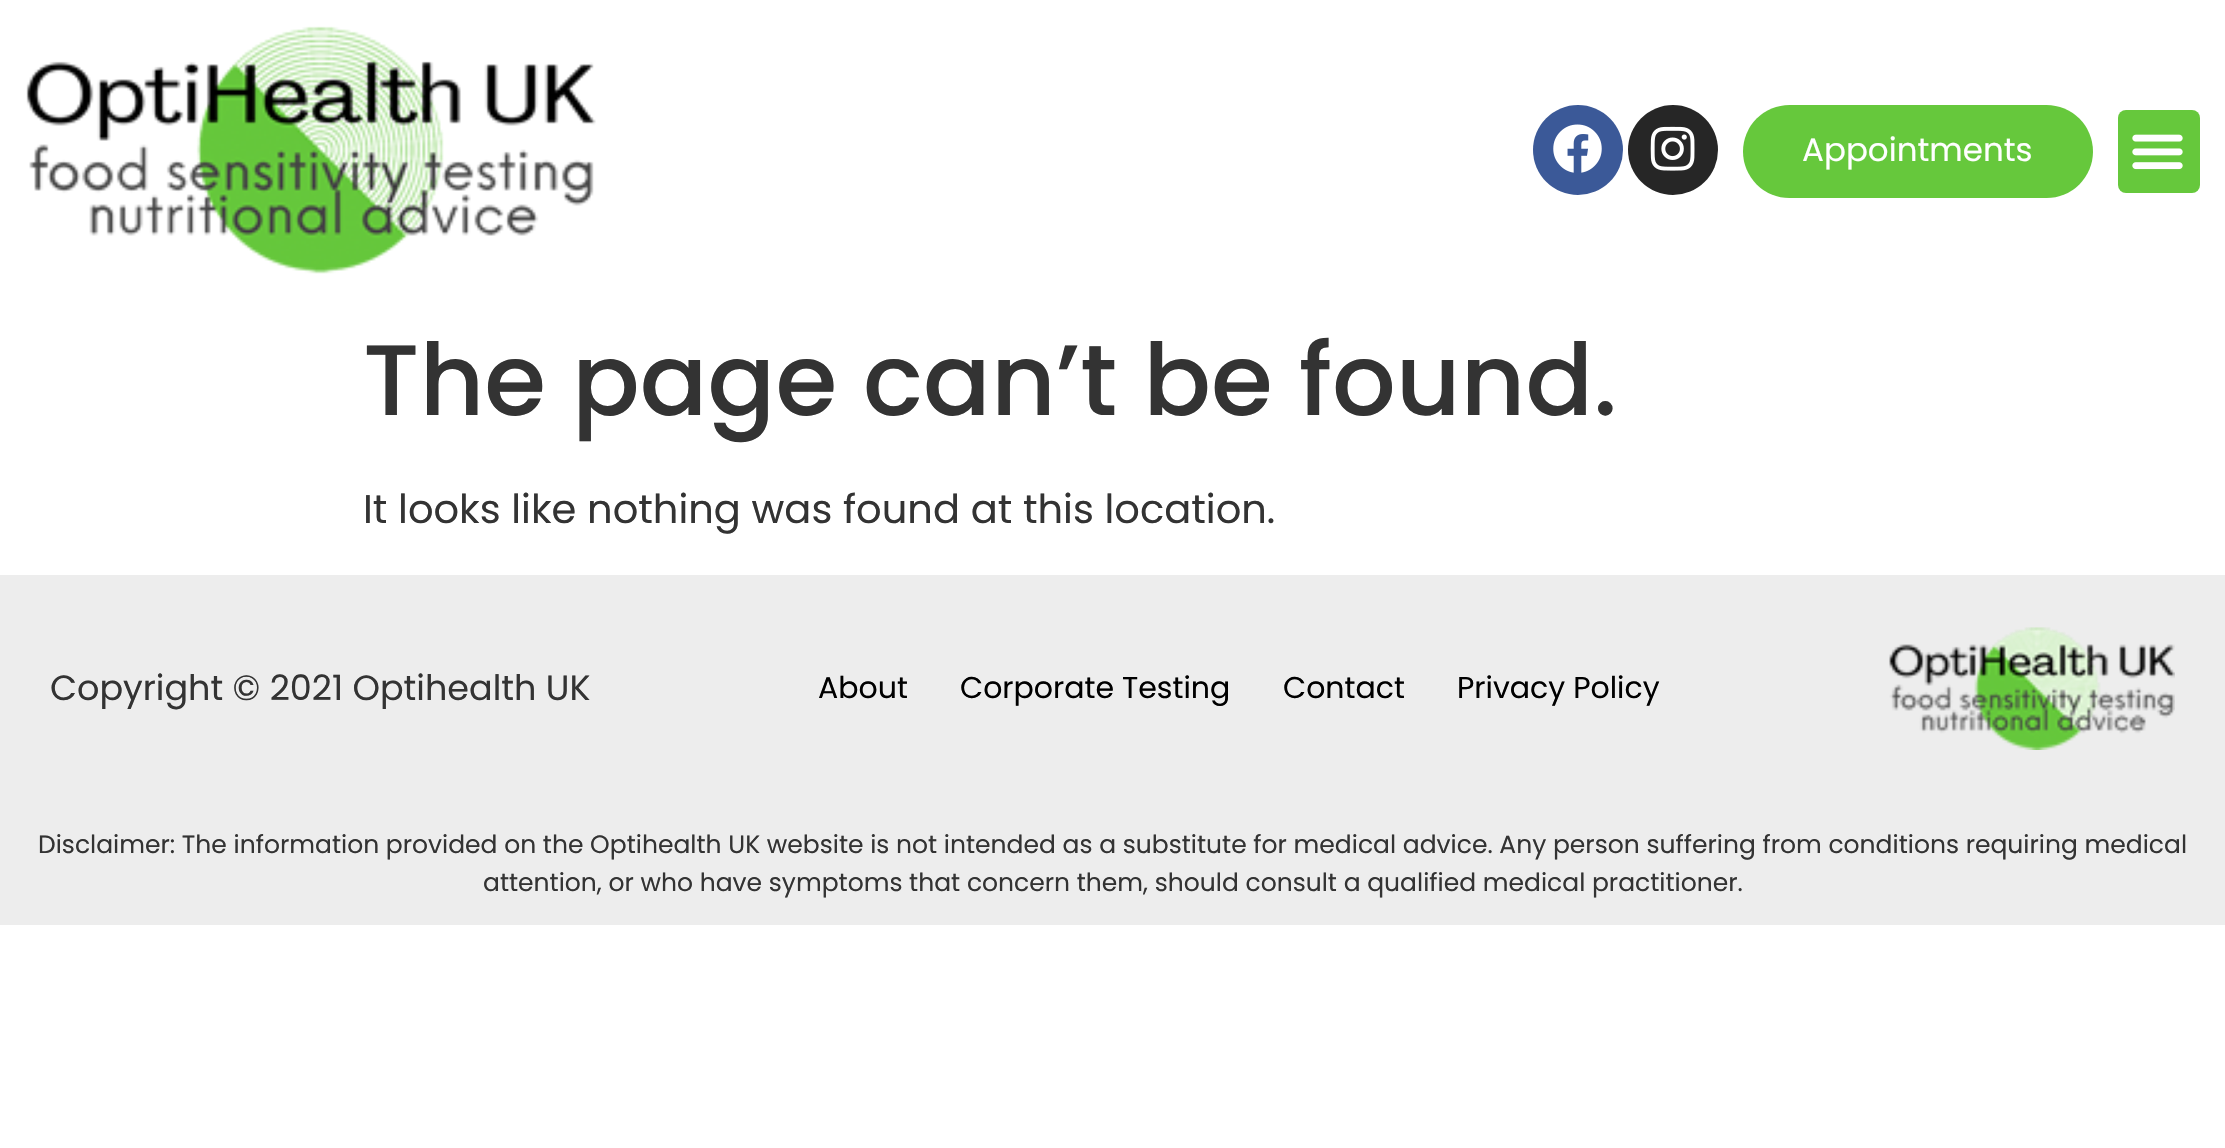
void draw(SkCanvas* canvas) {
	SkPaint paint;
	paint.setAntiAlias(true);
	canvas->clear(0xffffffff);
	canvas->drawImageRect(SkImages::DeferredFromEncodedData(SkData::MakeFromFileName("img1.png")), SkRect::MakeXYWH(26, 26, 570, 248), SkSamplingOptions());
	paint.setColor(0xff3b5998);
	canvas->drawCircle(1578, 150, 45, paint);
	canvas->drawImageRect(SkImages::DeferredFromEncodedData(SkData::MakeFromFileName("img2.png")), SkRect::MakeXYWH(1553, 124, 49, 49), SkSamplingOptions());
	paint.setColor(0xff262626);
	canvas->drawCircle(1673, 150, 45, paint);
	canvas->drawImageRect(SkImages::DeferredFromEncodedData(SkData::MakeFromFileName("img3.png")), SkRect::MakeXYWH(1650, 126, 45, 45), SkSamplingOptions());
	paint.setColor(0xff66c83c);
	canvas->drawRoundRect(SkRect::MakeXYWH(1743, 105, 350, 93), 46.5, 46.5, paint);
	SkFont f1(fontMgr->matchFamilyStyle("Poppins", SkFontStyle::Normal()), 32.5);
	f1.setSubpixel(true);
	paint.setColor(0xffffffff);
	canvas->drawString("Appointments", 1802, 161, f1, paint);
	paint.setColor(0xff66c83c);
	canvas->drawRoundRect(SkRect::MakeXYWH(2118, 110, 82, 83), 8, 8, paint);
	canvas->drawImageRect(SkImages::DeferredFromEncodedData(SkData::MakeFromFileName("img4.png")), SkRect::MakeXYWH(2132, 134, 51, 36), SkSamplingOptions());
	SkFont f2(fontMgr->matchFamilyStyle("Poppins", SkFontStyle(500, SkFontStyle::kNormal_Width, SkFontStyle::kUpright_Slant)), 100);
	f2.setSubpixel(true);
	paint.setColor(0xff333333);
	canvas->drawString("The page can’t be found.", 363, 415, f2, paint);
	SkFont f3(fontMgr->matchFamilyStyle("Poppins", SkFontStyle::Normal()), 40);
	f3.setSubpixel(true);
	canvas->drawString("It looks like nothing was found at this location.", 363, 523, f3, paint);
	paint.setColor(0xffededed);
	canvas->drawRect(SkRect::MakeXYWH(0, 575, 2225, 350), paint);
	SkFont f4(fontMgr->matchFamilyStyle("Poppins", SkFontStyle::Normal()), 35);
	f4.setSubpixel(true);
	paint.setColor(0xff333333);
	canvas->drawString("Copyright © 2021 Optihealth UK", 50, 700, f4, paint);
	SkFont f5(fontMgr->matchFamilyStyle("Poppins", SkFontStyle::Normal()), 30);
	f5.setSubpixel(true);
	paint.setColor(0xff000000);
	canvas->drawString("About", 818, 698, f5, paint);
	canvas->drawString("Corporate Testing", 960, 698, f5, paint);
	canvas->drawString("Contact", 1283, 698, f5, paint);
	canvas->drawString("Privacy Policy", 1457, 698, f5, paint);
	canvas->drawImageRect(SkImages::DeferredFromEncodedData(SkData::MakeFromFileName("img5.png")), SkRect::MakeXYWH(1889, 627, 286, 123), SkSamplingOptions());
	SkFont f6(fontMgr->matchFamilyStyle("Poppins", SkFontStyle::Normal()), 25);
	f6.setSubpixel(true);
	paint.setColor(0xff333333);
	canvas->drawString("Disclaimer: The information provided on the Optihealth UK website is not intended as a substitute for medical advice. Any person suffering from conditions requiring medical", 38, 853, f6, paint);
	canvas->drawString("attention, or who have symptoms that concern them, should consult a qualified medical practitioner.", 483, 891, f6, paint);
}
